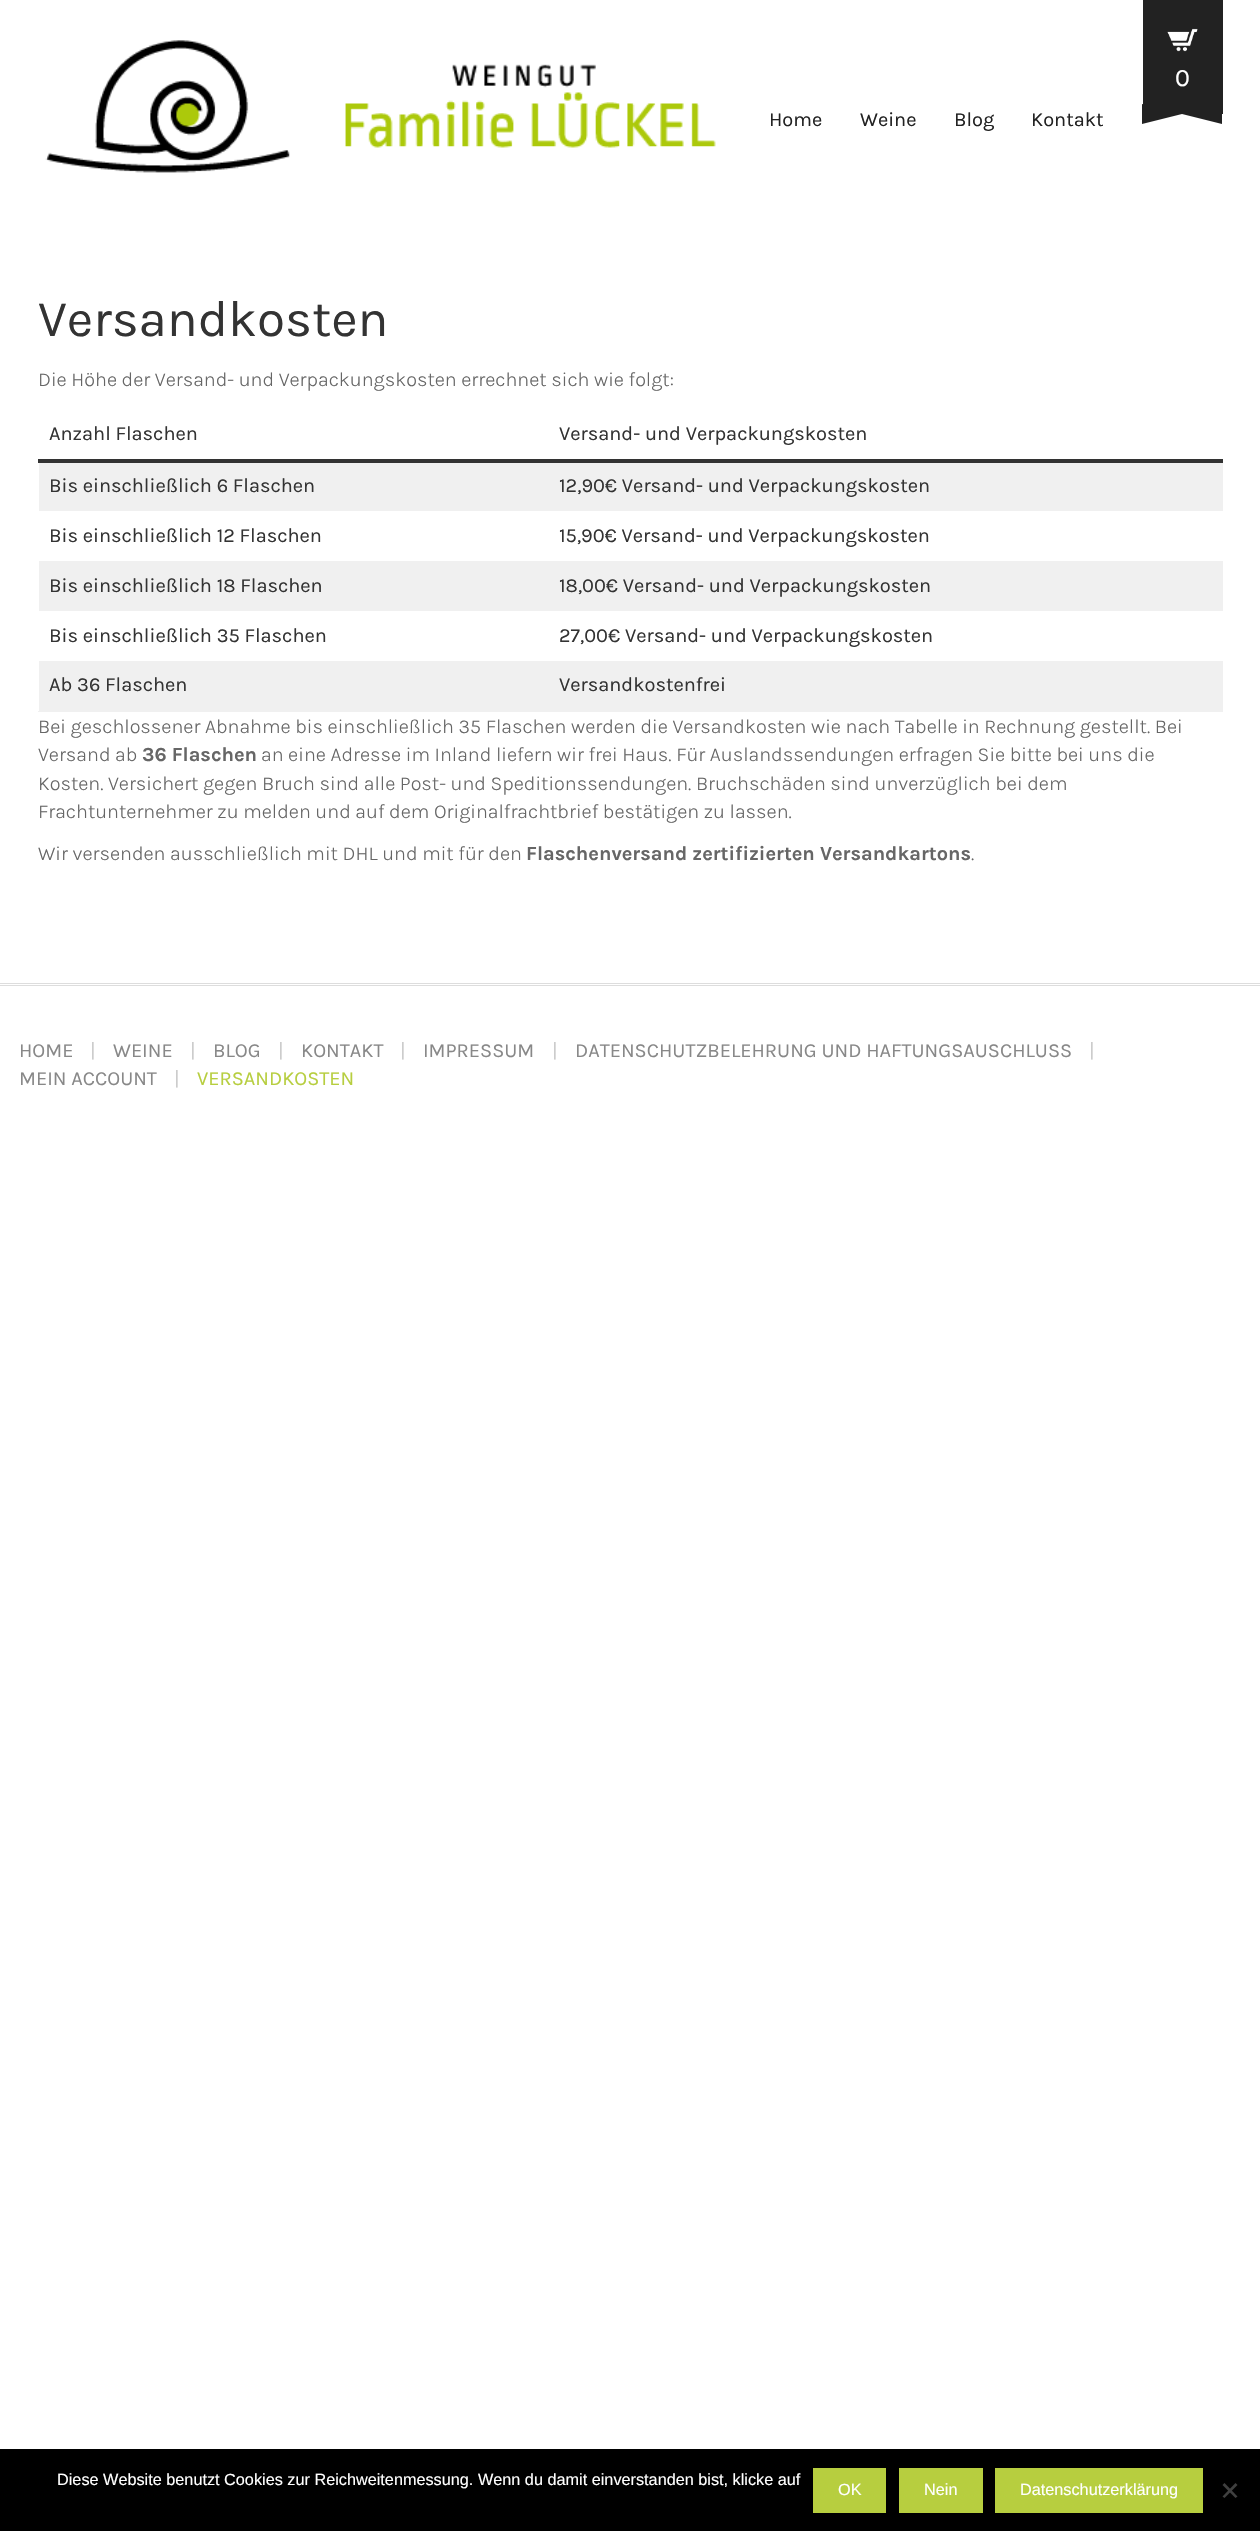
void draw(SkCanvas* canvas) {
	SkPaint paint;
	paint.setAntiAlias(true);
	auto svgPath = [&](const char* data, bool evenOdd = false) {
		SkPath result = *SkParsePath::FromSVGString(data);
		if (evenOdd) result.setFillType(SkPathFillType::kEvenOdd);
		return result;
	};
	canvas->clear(0xffffffff);
	canvas->drawImageRect(SkImages::DeferredFromEncodedData(SkData::MakeFromFileName("img1.png")), SkRect::MakeXYWH(45, 40, 671, 133), SkSamplingOptions());
	paint.setColor(0xff222222);
	canvas->drawRect(SkRect::MakeXYWH(1143, 0, 80, 114), paint);
	canvas->drawImageRect(SkImages::DeferredFromEncodedData(SkData::MakeFromFileName("img2.png")), SkRect::MakeXYWH(1167, 28, 31, 24), SkSamplingOptions());
	SkFont f1(fontMgr->matchFamilyStyle("Karla", SkFontStyle::Normal()), 25);
	f1.setSubpixel(true);
	paint.setColor(0xffffffff);
	canvas->drawString("0", 1175, 86, f1, paint);
	paint.setColor(0xff222222);
	canvas->drawPath(svgPath("M1222 104V124L1182 114Z"), paint);
	canvas->drawPath(svgPath("M1142 124V104L1182 114Z"), paint);
	SkFont f2(fontMgr->matchFamilyStyle("Karla", SkFontStyle::Normal()), 20);
	f2.setSubpixel(true);
	canvas->drawString("Home", 769, 126, f2, paint);
	canvas->drawString("Weine", 860, 126, f2, paint);
	canvas->drawString("Blog", 954, 126, f2, paint);
	canvas->drawString("Kontakt", 1031, 126, f2, paint);
	SkFont f3(fontMgr->matchFamilyStyle("Karla", SkFontStyle::Normal()), 51.25);
	f3.setSubpixel(true);
	paint.setColor(0xff333333);
	canvas->drawString("Versandkosten", 38, 336, f3, paint);
	SkFont f4(fontMgr->matchFamilyStyle("Karla", SkFontStyle(300, SkFontStyle::kNormal_Width, SkFontStyle::kUpright_Slant)), 20);
	f4.setSubpixel(true);
	paint.setColor(0xff666666);
	canvas->drawString("Die Höhe der Versand- und Verpackungskosten errechnet sich wie folgt:", 38, 386, f4, paint);
	paint.setColor(0xfff0f0f0);
	canvas->drawRect(SkRect::MakeXYWH(38, 711, 1185, 1), paint);
	paint.setColor(0xff333333);
	canvas->drawRect(SkRect::MakeXYWH(38, 459, 1185, 4), paint);
	canvas->drawString("Anzahl Flaschen", 49, 440, f2, paint);
	canvas->drawString("Versand- und Verpackungskosten", 559, 440, f2, paint);
	paint.setColor(0xfff0f0f0);
	canvas->drawRect(SkRect::MakeXYWH(39, 463, 1184, 48), paint);
	paint.setColor(0xff333333);
	canvas->drawString("Bis einschließlich 6 Flaschen", 49, 492, f2, paint);
	canvas->drawString("12,90€ Versand- und Verpackungskosten", 559, 492, f2, paint);
	canvas->drawString("Bis einschließlich 12 Flaschen", 49, 542, f2, paint);
	canvas->drawString("15,90€ Versand- und Verpackungskosten", 559, 542, f2, paint);
	paint.setColor(0xfff0f0f0);
	canvas->drawRect(SkRect::MakeXYWH(39, 561, 1184, 50), paint);
	paint.setColor(0xff333333);
	canvas->drawString("Bis einschließlich 18 Flaschen", 49, 592, f2, paint);
	canvas->drawString("18,00€ Versand- und Verpackungskosten", 559, 592, f2, paint);
	canvas->drawString("Bis einschließlich 35 Flaschen", 49, 642, f2, paint);
	canvas->drawString("27,00€ Versand- und Verpackungskosten", 559, 642, f2, paint);
	paint.setColor(0xfff0f0f0);
	canvas->drawRect(SkRect::MakeXYWH(39, 661, 1184, 50), paint);
	paint.setColor(0xff333333);
	canvas->drawString("Ab 36 Flaschen", 49, 691, f2, paint);
	canvas->drawString("Versandkostenfrei", 559, 691, f2, paint);
	paint.setColor(0xff666666);
	canvas->drawString("Bei geschlossener Abnahme bis einschließlich 35 Flaschen werden die Versandkosten wie nach Tabelle in Rechnung gestellt. Bei", 38, 733, f4, paint);
	canvas->drawString("Versand ab", 38, 761, f4, paint);
	SkFont f5(fontMgr->matchFamilyStyle("Karla", SkFontStyle::Bold()), 20);
	f5.setSubpixel(true);
	canvas->drawString("36 Flaschen", 142, 761, f5, paint);
	canvas->drawString("an eine Adresse im Inland liefern wir frei Haus. Für Auslandssendungen erfragen Sie bitte bei uns die", 261, 761, f4, paint);
	canvas->drawString("Kosten. Versichert gegen Bruch sind alle Post- und Speditionssendungen. Bruchschäden sind unverzüglich bei dem", 38, 790, f4, paint);
	canvas->drawString("Frachtunternehmer zu melden und auf dem Originalfrachtbrief bestätigen zu lassen.", 38, 818, f4, paint);
	canvas->drawString("Wir versenden ausschließlich mit DHL und mit für den", 38, 860, f4, paint);
	canvas->drawString("Flaschenversand zertifizierten Versandkartons", 526, 860, f5, paint);
	canvas->drawString(".", 971, 860, f4, paint);
	paint.setColor(0xffdddddd);
	canvas->drawRect(SkRect::MakeXYWH(0, 983, 1260, 1), paint);
	canvas->drawRect(SkRect::MakeXYWH(0, 985, 1260, 1), paint);
	paint.setColor(0xff888888);
	canvas->drawString("HOME", 19, 1057, f2, paint);
	paint.setColor(0xffcccccc);
	canvas->drawString("|", 90, 1057, f2, paint);
	paint.setColor(0xff888888);
	canvas->drawString("WEINE", 113, 1057, f2, paint);
	paint.setColor(0xffcccccc);
	canvas->drawString("|", 190, 1057, f2, paint);
	paint.setColor(0xff888888);
	canvas->drawString("BLOG", 213, 1057, f2, paint);
	paint.setColor(0xffcccccc);
	canvas->drawString("|", 278, 1057, f2, paint);
	paint.setColor(0xff888888);
	canvas->drawString("KONTAKT", 301, 1057, f2, paint);
	paint.setColor(0xffcccccc);
	canvas->drawString("|", 400, 1057, f2, paint);
	paint.setColor(0xff888888);
	canvas->drawString("IMPRESSUM", 423, 1057, f2, paint);
	paint.setColor(0xffcccccc);
	canvas->drawString("|", 552, 1057, f2, paint);
	paint.setColor(0xff888888);
	canvas->drawString("DATENSCHUTZBELEHRUNG UND HAFTUNGSAUSCHLUSS", 575, 1057, f2, paint);
	paint.setColor(0xffcccccc);
	canvas->drawString("|", 1089, 1057, f2, paint);
	paint.setColor(0xff888888);
	canvas->drawString("MEIN ACCOUNT", 19, 1085, f2, paint);
	paint.setColor(0xffcccccc);
	canvas->drawString("|", 174, 1085, f2, paint);
	paint.setColor(0xffb7ce3f);
	canvas->drawString("VERSANDKOSTEN", 197, 1085, f2, paint);
	paint.setColor(0xff000000);
	canvas->drawRect(SkRect::MakeXYWH(0, 2449, 1260, 82), paint);
	SkFont f6(fontMgr->matchFamilyStyle("Liberation Sans", SkFontStyle::Normal()), 16.25);
	f6.setSubpixel(true);
	paint.setColor(0xffffffff);
	canvas->drawString("Diese Website benutzt Cookies zur Reichweitenmessung. Wenn du damit einverstanden bist, klicke auf", 57, 2485, f6, paint);
	paint.setColor(0xffb7ce3f);
	canvas->drawRect(SkRect::MakeXYWH(813, 2468, 73, 45), paint);
	paint.setColor(0xffffffff);
	canvas->drawString("OK", 838, 2495, f6, paint);
	paint.setColor(0xffb7ce3f);
	canvas->drawRect(SkRect::MakeXYWH(899, 2468, 84, 45), paint);
	paint.setColor(0xffffffff);
	canvas->drawString("Nein", 924, 2495, f6, paint);
	paint.setColor(0xffb7ce3f);
	canvas->drawRect(SkRect::MakeXYWH(995, 2468, 208, 45), paint);
	paint.setColor(0xffffffff);
	canvas->drawString("Datenschutzerklärung", 1020, 2495, f6, paint);
	paint.setColor(0xff404040);
	canvas->drawPath(svgPath("M1235.5 2483L1237.5 2485L1224.5 2498L1222.5 2496.5Z"), paint);
	canvas->drawPath(svgPath("M1222.5 2485L1224.5 2483L1237.5 2496.5L1235.5 2498Z"), paint);
}
